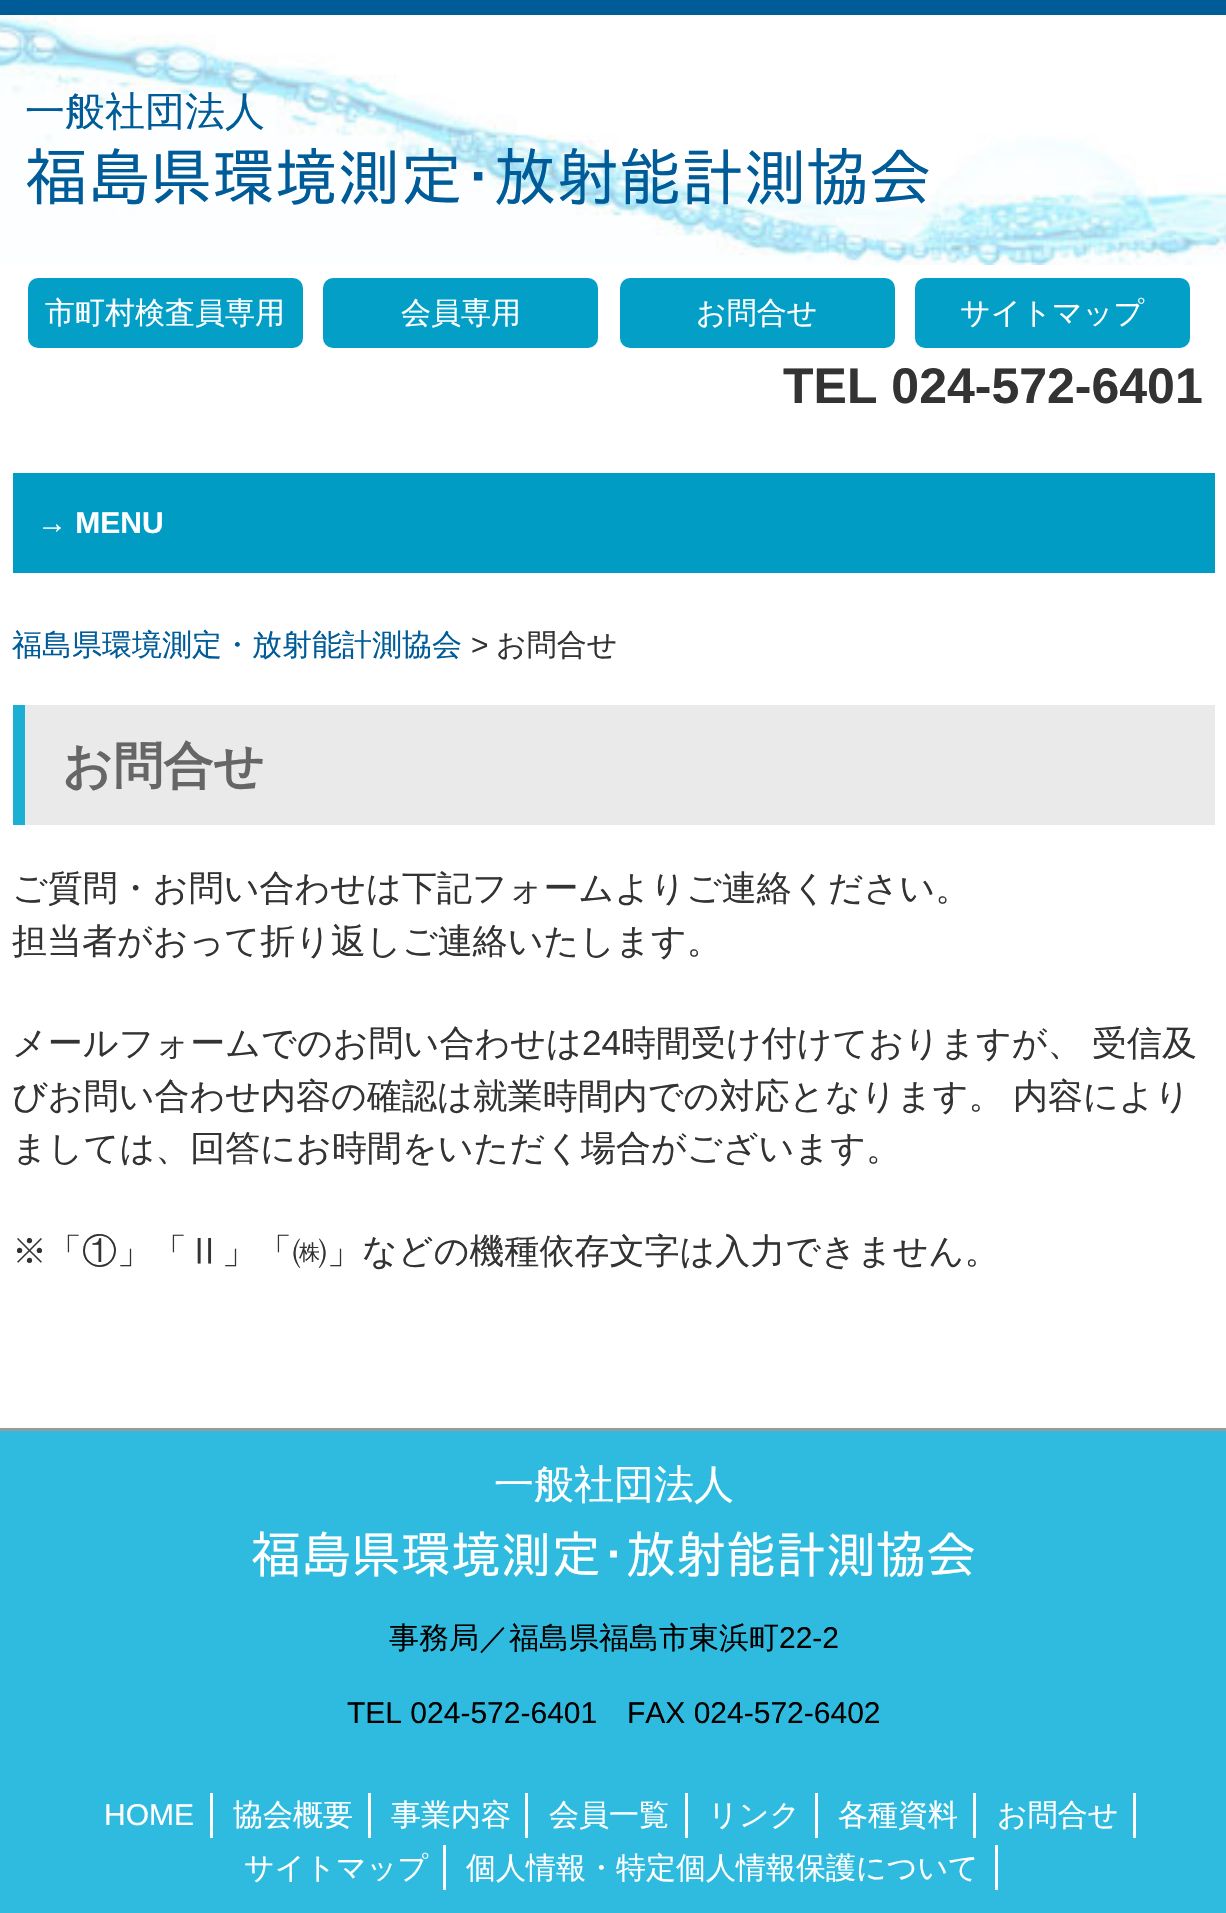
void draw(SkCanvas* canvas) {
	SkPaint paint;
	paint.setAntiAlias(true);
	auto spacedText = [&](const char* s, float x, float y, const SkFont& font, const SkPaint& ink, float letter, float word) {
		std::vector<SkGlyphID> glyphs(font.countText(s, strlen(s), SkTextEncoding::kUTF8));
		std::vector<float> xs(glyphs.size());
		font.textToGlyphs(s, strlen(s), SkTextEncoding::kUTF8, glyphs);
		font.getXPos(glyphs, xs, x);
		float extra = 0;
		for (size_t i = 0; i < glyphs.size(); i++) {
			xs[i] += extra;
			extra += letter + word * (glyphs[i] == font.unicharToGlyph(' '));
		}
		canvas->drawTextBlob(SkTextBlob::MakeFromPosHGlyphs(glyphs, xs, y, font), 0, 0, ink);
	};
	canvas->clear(0xffffffff);
	paint.setColor(0xff005c98);
	canvas->drawRect(SkRect::MakeXYWH(0, 0, 1226, 15), paint);
	canvas->drawImageRect(SkImages::DeferredFromEncodedData(SkData::MakeFromFileName("img1.png")), SkRect::MakeXYWH(0, 15, 1226, 250), SkSamplingOptions());
	SkFont f1(fontMgr->matchFamilyStyle("WenQuanYi Zen Hei", SkFontStyle(500, SkFontStyle::kNormal_Width, SkFontStyle::kUpright_Slant)), 40);
	f1.setSubpixel(true);
	canvas->drawString("一般社団法人", 25, 125, f1, paint);
	SkFont f2(fontMgr->matchFamilyStyle("IPAPGothic", SkFontStyle::Normal()), 62.5);
	f2.setSubpixel(true);
	canvas->drawString("福島県環境測定･放射能計測協会", 25, 200, f2, paint);
	paint.setColor(0xff049fc7);
	canvas->drawRoundRect(SkRect::MakeXYWH(28, 278, 275, 70), 10, 10, paint);
	SkFont f3(fontMgr->matchFamilyStyle("WenQuanYi Zen Hei", SkFontStyle(500, SkFontStyle::kNormal_Width, SkFontStyle::kUpright_Slant)), 30);
	f3.setSubpixel(true);
	paint.setColor(0xffffffff);
	canvas->drawString("市町村検査員専用", 45, 323, f3, paint);
	paint.setColor(0xff049fc7);
	canvas->drawRoundRect(SkRect::MakeXYWH(323, 278, 275, 70), 10, 10, paint);
	paint.setColor(0xffffffff);
	canvas->drawString("会員専用", 401, 323, f3, paint);
	paint.setColor(0xff049fc7);
	canvas->drawRoundRect(SkRect::MakeXYWH(620, 278, 275, 70), 10, 10, paint);
	paint.setColor(0xffffffff);
	canvas->drawString("お問合せ", 696, 323, f3, paint);
	paint.setColor(0xff049fc7);
	canvas->drawRoundRect(SkRect::MakeXYWH(915, 278, 275, 70), 10, 10, paint);
	paint.setColor(0xffffffff);
	canvas->drawString("サイトマップ", 960, 323, f3, paint);
	SkFont f4(fontMgr->matchFamilyStyle("Liberation Sans", SkFontStyle::Bold()), 50);
	f4.setSubpixel(true);
	paint.setColor(0xff333333);
	canvas->drawString("TEL 024-572-6401", 783, 403, f4, paint);
	paint.setColor(0xff009cc4);
	canvas->drawRect(SkRect::MakeXYWH(13, 473, 1202, 100), paint);
	SkFont f5(fontMgr->matchFamilyStyle("Liberation Sans", SkFontStyle::Bold()), 30);
	f5.setSubpixel(true);
	paint.setColor(0xffffffff);
	canvas->drawString("→ MENU", 37, 533, f5, paint);
	paint.setColor(0xff005c98);
	canvas->drawString("福島県環境測定・放射能計測協会", 12, 655, f3, paint);
	SkFont f6(fontMgr->matchFamilyStyle("Liberation Sans", SkFontStyle::Normal()), 30);
	f6.setSubpixel(true);
	paint.setColor(0xff333333);
	canvas->drawString(">", 471, 655, f6, paint);
	canvas->drawString("お問合せ", 496, 655, f3, paint);
	paint.setColor(0xffeaeaea);
	canvas->drawRect(SkRect::MakeXYWH(25, 705, 1190, 120), paint);
	paint.setColor(0xff1cafd4);
	canvas->drawRect(SkRect::MakeXYWH(13, 705, 12, 120), paint);
	SkFont f7(fontMgr->matchFamilyStyle("WenQuanYi Zen Hei", SkFontStyle::Bold()), 50);
	f7.setSubpixel(true);
	paint.setColor(0xff666666);
	canvas->drawString("お問合せ", 62, 783, f7, paint);
	SkFont f8(fontMgr->matchFamilyStyle("WenQuanYi Zen Hei", SkFontStyle(500, SkFontStyle::kNormal_Width, SkFontStyle::kUpright_Slant)), 35);
	f8.setSubpixel(true);
	paint.setColor(0xff333333);
	canvas->drawString("ご質問・お問い合わせは下記フォームよりご連絡ください。", 12, 900, f8, paint);
	canvas->drawString("担当者がおって折り返しご連絡いたします。", 12, 953, f8, paint);
	canvas->drawString("メールフォームでのお問い合わせは", 12, 1055, f8, paint);
	SkFont f9(fontMgr->matchFamilyStyle("Liberation Sans", SkFontStyle::Normal()), 35);
	f9.setSubpixel(true);
	canvas->drawString("24", 582, 1055, f9, paint);
	spacedText("時間受け付けておりますが、 受信及", 621, 1055, f8, paint, 0, -1);
	spacedText("びお問い合わせ内容の確認は就業時間内での対応となります。 内容により", 12, 1108, f8, paint, 0, -1);
	canvas->drawString("ましては、回答にお時間をいただく場合がございます。", 12, 1160, f8, paint);
	canvas->drawString("※「①」「Ⅱ」「㈱」などの機種依存文字は入力できません。", 12, 1263, f8, paint);
	paint.setColor(0xff2ebbdf);
	canvas->drawRect(SkRect::MakeXYWH(0, 1431, 1226, 482), paint);
	paint.setColor(0xff999999);
	canvas->drawRect(SkRect::MakeXYWH(0, 1428, 1226, 3), paint);
	paint.setColor(0xffffffff);
	canvas->drawString("一般社団法人", 494, 1498, f1, paint);
	SkFont f10(fontMgr->matchFamilyStyle("IPAPGothic", SkFontStyle::Normal()), 50);
	f10.setSubpixel(true);
	canvas->drawString("福島県環境測定･放射能計測協会", 251, 1573, f10, paint);
	paint.setColor(0xff000000);
	canvas->drawString("事務局／福島県福島市東浜町", 389, 1648, f3, paint);
	canvas->drawString("22-2", 779, 1648, f6, paint);
	canvas->drawString("TEL 024-572-6401", 347, 1723, f6, paint);
	canvas->drawString("FAX 024-572-6402", 627, 1723, f6, paint);
	paint.setColor(0xffffffff);
	canvas->drawRect(SkRect::MakeXYWH(210, 1793, 3, 45), paint);
	canvas->drawString("HOME", 104, 1825, f6, paint);
	canvas->drawRect(SkRect::MakeXYWH(368, 1793, 3, 45), paint);
	canvas->drawString("協会概要", 233, 1825, f3, paint);
	canvas->drawRect(SkRect::MakeXYWH(525, 1793, 3, 45), paint);
	canvas->drawString("事業内容", 391, 1825, f3, paint);
	canvas->drawRect(SkRect::MakeXYWH(685, 1793, 3, 45), paint);
	canvas->drawString("会員一覧", 549, 1825, f3, paint);
	canvas->drawRect(SkRect::MakeXYWH(815, 1793, 3, 45), paint);
	canvas->drawString("リンク", 708, 1825, f3, paint);
	canvas->drawRect(SkRect::MakeXYWH(973, 1793, 3, 45), paint);
	canvas->drawString("各種資料", 838, 1825, f3, paint);
	canvas->drawRect(SkRect::MakeXYWH(1133, 1793, 3, 45), paint);
	canvas->drawString("お問合せ", 997, 1825, f3, paint);
	canvas->drawRect(SkRect::MakeXYWH(443, 1845, 3, 45), paint);
	canvas->drawString("サイトマップ", 244, 1878, f3, paint);
	canvas->drawRect(SkRect::MakeXYWH(995, 1845, 3, 45), paint);
	canvas->drawString("個人情報・特定個人情報保護について", 466, 1878, f3, paint);
}
